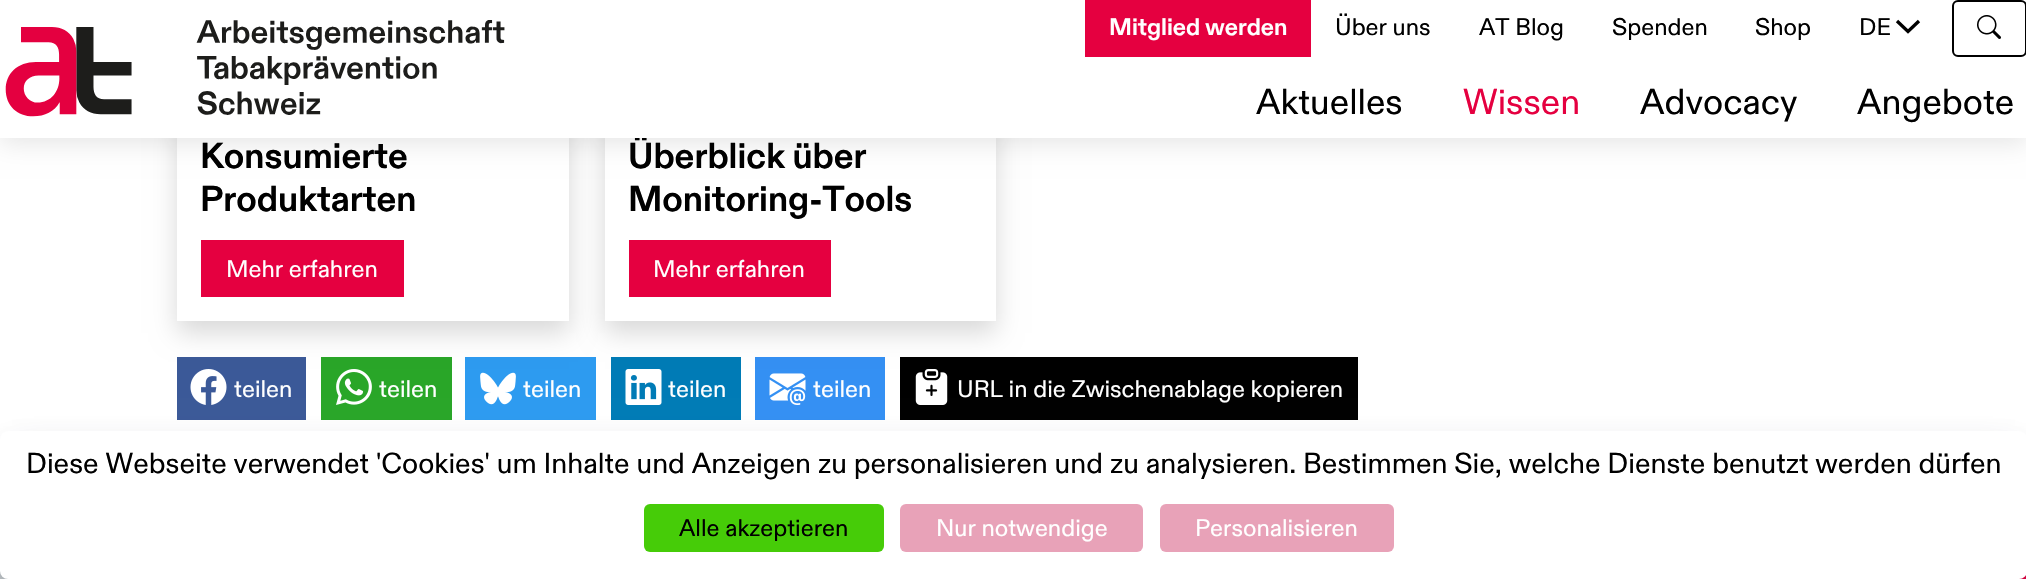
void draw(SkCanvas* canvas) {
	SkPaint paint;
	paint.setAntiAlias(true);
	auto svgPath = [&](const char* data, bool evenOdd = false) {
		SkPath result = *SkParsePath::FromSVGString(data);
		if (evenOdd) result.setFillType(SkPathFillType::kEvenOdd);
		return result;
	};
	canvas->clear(0xffffffff);
	paint.setColor(0xff3b5998);
	canvas->drawRect(SkRect::MakeXYWH(177, 357, 129, 63), paint);
	canvas->drawImageRect(SkImages::DeferredFromEncodedData(SkData::MakeFromFileName("img3.png")), SkRect::MakeXYWH(190, 369, 37, 36), SkSamplingOptions());
	paint.setColor(0xff29a628);
	canvas->drawRect(SkRect::MakeXYWH(321, 357, 131, 63), paint);
	canvas->drawImageRect(SkImages::DeferredFromEncodedData(SkData::MakeFromFileName("img4.png")), SkRect::MakeXYWH(336, 369, 36, 36), SkSamplingOptions());
	paint.setColor(0xff2d9bf0);
	canvas->drawRect(SkRect::MakeXYWH(465, 357, 131, 63), paint);
	paint.setColor(0x26000000);
	paint.setMaskFilter(SkMaskFilter::MakeBlur(kNormal_SkBlurStyle, 12));
	canvas->drawRect(SkRect::MakeXYWH(177, 125, 392, 208), paint);
	paint.setMaskFilter(nullptr);
	paint.setColor(0xffffffff);
	canvas->drawRect(SkRect::MakeXYWH(177, 138, 392, 183), paint);
	paint.setColor(0xff007bb6);
	canvas->drawRect(SkRect::MakeXYWH(611, 357, 130, 63), paint);
	canvas->drawImageRect(SkImages::DeferredFromEncodedData(SkData::MakeFromFileName("img6.png")), SkRect::MakeXYWH(625, 369, 37, 36), SkSamplingOptions());
	paint.setColor(0xff3490f3);
	canvas->drawRect(SkRect::MakeXYWH(755, 357, 130, 63), paint);
	paint.setColor(0xff000000);
	canvas->drawRect(SkRect::MakeXYWH(900, 357, 458, 63), paint);
	canvas->drawImageRect(SkImages::DeferredFromEncodedData(SkData::MakeFromFileName("img8.png")), SkRect::MakeXYWH(915, 369, 33, 36), SkSamplingOptions());
	paint.setColor(0x26000000);
	paint.setMaskFilter(SkMaskFilter::MakeBlur(kNormal_SkBlurStyle, 12));
	canvas->drawRect(SkRect::MakeXYWH(605, 125, 391, 208), paint);
	paint.setMaskFilter(nullptr);
	paint.setColor(0xffffffff);
	canvas->drawRect(SkRect::MakeXYWH(605, 138, 391, 183), paint);
	paint.setColor(0x1a000000);
	paint.setMaskFilter(SkMaskFilter::MakeBlur(kNormal_SkBlurStyle, 12));
	canvas->drawRect(SkRect::MakeXYWH(0, 5, 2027, 138), paint);
	paint.setMaskFilter(nullptr);
	SkFont f1(fontMgr->matchFamilyStyle("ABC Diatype", SkFontStyle::Bold()), 36);
	f1.setSubpixel(true);
	paint.setColor(0xff000000);
	canvas->drawString("Überblick über", 628, 168, f1, paint);
	paint.setColor(0xffffffff);
	canvas->drawRect(SkRect::MakeXYWH(0, 0, 2026, 138), paint);
	canvas->drawImageRect(SkImages::DeferredFromEncodedData(SkData::MakeFromFileName("img1.png")), SkRect::MakeXYWH(5, 20, 500, 97), SkSamplingOptions());
	paint.setColor(0xffe50040);
	canvas->drawRect(SkRect::MakeXYWH(1085, 0, 226, 57), paint);
	SkFont f2(fontMgr->matchFamilyStyle("ABC Diatype", SkFontStyle::Bold()), 24);
	f2.setSubpixel(true);
	paint.setColor(0xffffffff);
	canvas->drawString("Mitglied werden", 1109, 35, f2, paint);
	SkFont f3(fontMgr->matchFamilyStyle("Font", SkFontStyle::Normal()), 24);
	f3.setSubpixel(true);
	paint.setColor(0xff000000);
	canvas->drawString("Über uns", 1335, 35, f3, paint);
	canvas->drawString("AT Blog", 1479, 35, f3, paint);
	canvas->drawString("Spenden", 1612, 35, f3, paint);
	canvas->drawString("Shop", 1755, 35, f3, paint);
	canvas->drawString("DE", 1859, 35, f3, paint);
	paint.setStroke(true);
	paint.setStrokeWidth(3.3);
	canvas->drawPath(svgPath("M1919 21L1908 31.5L1897 21"), paint);
	paint.setStrokeWidth(2);
	canvas->drawRoundRect(SkRect::MakeXYWH(1953, 1, 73, 55), 5, 5, paint);
	canvas->drawImageRect(SkImages::DeferredFromEncodedData(SkData::MakeFromFileName("img2.png")), SkRect::MakeXYWH(1977, 15, 24, 24), SkSamplingOptions());
	SkFont f4(fontMgr->matchFamilyStyle("Font", SkFontStyle::Normal()), 36);
	f4.setSubpixel(true);
	paint.setStroke(false);
	canvas->drawString("Aktuelles", 1256, 114, f4, paint);
	paint.setColor(0xffe50040);
	canvas->drawString("Wissen", 1463, 114, f4, paint);
	paint.setColor(0xff000000);
	canvas->drawString("Advocacy", 1640, 114, f4, paint);
	canvas->drawString("Angebote", 1857, 114, f4, paint);
	canvas->drawString("Konsumierte", 200, 168, f1, paint);
	canvas->drawString("Produktarten", 200, 211, f1, paint);
	paint.setColor(0xffe50040);
	canvas->drawRect(SkRect::MakeXYWH(201, 240, 203, 57), paint);
	paint.setColor(0xffffffff);
	canvas->drawString("Mehr erfahren", 226, 277, f3, paint);
	paint.setColor(0xff000000);
	canvas->drawString("Monitoring-Tools", 628, 211, f1, paint);
	paint.setColor(0xffe50040);
	canvas->drawRect(SkRect::MakeXYWH(629, 240, 202, 57), paint);
	paint.setColor(0xffffffff);
	canvas->drawString("Mehr erfahren", 653, 277, f3, paint);
	canvas->drawString("teilen", 234, 397, f3, paint);
	canvas->drawString("teilen", 379, 397, f3, paint);
	canvas->drawImageRect(SkImages::DeferredFromEncodedData(SkData::MakeFromFileName("img5.png")), SkRect::MakeXYWH(480, 372, 36, 33), SkSamplingOptions());
	canvas->drawString("teilen", 523, 397, f3, paint);
	canvas->drawString("teilen", 668, 397, f3, paint);
	canvas->drawImageRect(SkImages::DeferredFromEncodedData(SkData::MakeFromFileName("img7.png")), SkRect::MakeXYWH(769, 373, 37, 32), SkSamplingOptions());
	canvas->drawString("teilen", 813, 397, f3, paint);
	canvas->drawString("URL in die Zwischenablage kopieren", 957, 397, f3, paint);
	paint.setColor(0xffc1c7c8);
	canvas->drawRect(SkRect::MakeXYWH(0, 571, 8, 8), paint);
	paint.setColor(0xffe50040);
	canvas->drawRect(SkRect::MakeXYWH(2019, 574, 7, 5), paint);
	paint.setColor(0x4d000000);
	paint.setMaskFilter(SkMaskFilter::MakeBlur(kNormal_SkBlurStyle, 12));
	canvas->drawRect(SkRect::MakeXYWH(12, 455, 2003, 124), paint);
	paint.setMaskFilter(nullptr);
	paint.setColor(0x4032325d);
	paint.setMaskFilter(SkMaskFilter::MakeBlur(kNormal_SkBlurStyle, 20));
	canvas->drawRect(SkRect::MakeXYWH(8, 458, 2011, 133), paint);
	paint.setMaskFilter(nullptr);
	paint.setColor(0xffffffff);
	canvas->drawRoundRect(SkRect::MakeXYWH(0, 431, 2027, 148), 8, 8, paint);
	SkFont f5(fontMgr->matchFamilyStyle("Font", SkFontStyle::Normal()), 28.8);
	f5.setSubpixel(true);
	paint.setColor(0xff000000);
	canvas->drawString("Diese Webseite verwendet 'Cookies' um Inhalte und Anzeigen zu personalisieren und zu analysieren. Bestimmen Sie, welche Dienste benutzt werden dürfen", 26, 473, f5, paint);
	paint.setColor(0xff46cc08);
	canvas->drawRoundRect(SkRect::MakeXYWH(644, 504, 240, 48), 6, 6, paint);
	paint.setColor(0xff000000);
	canvas->drawString("Alle akzeptieren", 679, 536, f3, paint);
	paint.setColor(0xffe8a2b8);
	canvas->drawRoundRect(SkRect::MakeXYWH(900, 504, 243, 48), 6, 6, paint);
	paint.setColor(0xffffffff);
	canvas->drawString("Nur notwendige", 936, 536, f3, paint);
	paint.setColor(0xffe8a2b8);
	canvas->drawRoundRect(SkRect::MakeXYWH(1160, 504, 234, 48), 6, 6, paint);
	paint.setColor(0xffffffff);
	canvas->drawString("Personalisieren", 1195, 536, f3, paint);
}
